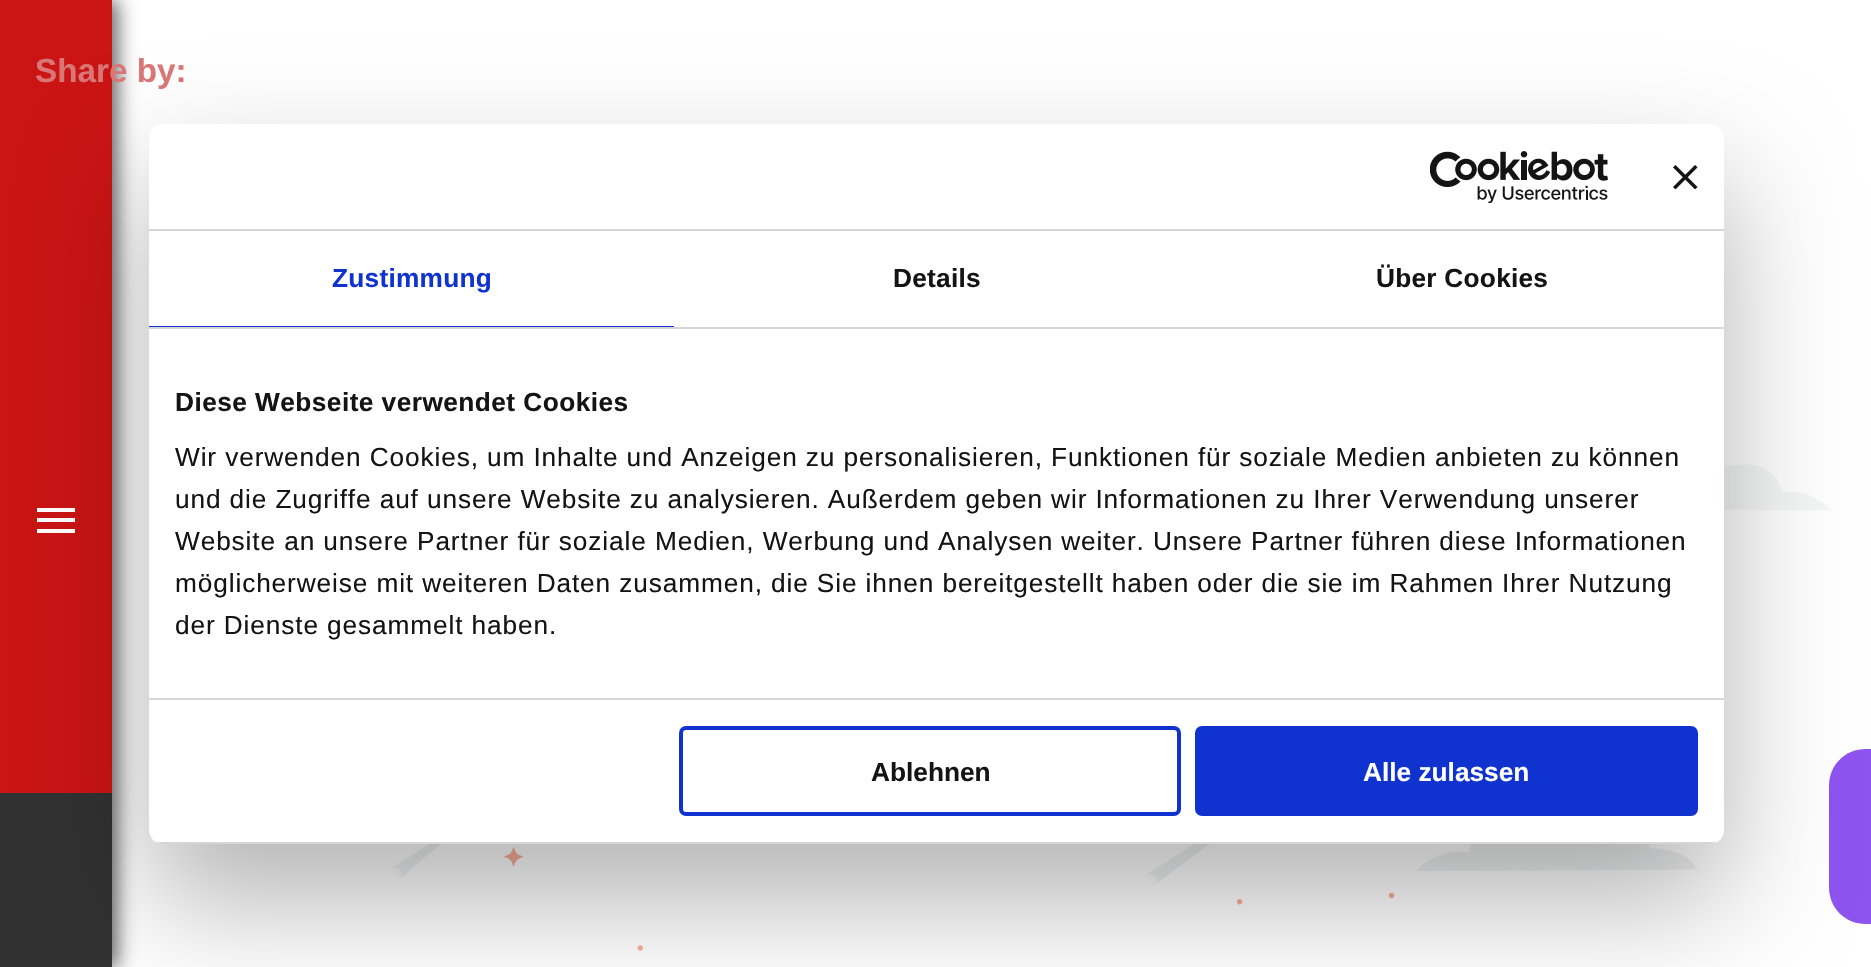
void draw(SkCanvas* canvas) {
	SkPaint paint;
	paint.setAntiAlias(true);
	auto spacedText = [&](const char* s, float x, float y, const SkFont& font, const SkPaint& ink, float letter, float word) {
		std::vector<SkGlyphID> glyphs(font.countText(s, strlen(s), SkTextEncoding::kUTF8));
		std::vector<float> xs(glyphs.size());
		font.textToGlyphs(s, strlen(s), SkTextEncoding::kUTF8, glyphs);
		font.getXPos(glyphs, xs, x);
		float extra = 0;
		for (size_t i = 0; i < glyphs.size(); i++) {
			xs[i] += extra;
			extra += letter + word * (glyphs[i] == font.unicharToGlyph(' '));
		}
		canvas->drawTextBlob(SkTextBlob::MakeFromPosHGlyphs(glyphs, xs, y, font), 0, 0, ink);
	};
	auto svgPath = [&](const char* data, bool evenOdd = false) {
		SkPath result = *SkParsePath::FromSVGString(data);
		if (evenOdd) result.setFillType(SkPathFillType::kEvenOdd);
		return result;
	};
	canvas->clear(0xffffffff);
	paint.setColor(0xba1e1e1e);
	paint.setMaskFilter(SkMaskFilter::MakeBlur(kNormal_SkBlurStyle, 9.5));
	canvas->drawRect(SkRect::MakeXYWH(5, 0, 112, 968), paint);
	paint.setMaskFilter(nullptr);
	paint.setColor(0xffcb1414);
	canvas->drawRect(SkRect::MakeXYWH(0, 0, 112, 793), paint);
	paint.setColor(0xff313131);
	canvas->drawRect(SkRect::MakeXYWH(0, 793, 112, 174), paint);
	paint.setColor(0xffffffff);
	canvas->drawRect(SkRect::MakeXYWH(37, 508, 38, 4), paint);
	canvas->drawRect(SkRect::MakeXYWH(37, 518, 38, 4), paint);
	canvas->drawRect(SkRect::MakeXYWH(37, 529, 38, 4), paint);
	canvas->drawImageRect(SkImages::DeferredFromEncodedData(SkData::MakeFromFileName("img1.png")), SkRect::MakeXYWH(379, 464, 1453, 487), SkSamplingOptions());
	paint.setColor(0xff8f53f0);
	canvas->drawPath(svgPath("M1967 924H1866C1845 924 1829 908 1829 887V786C1829 765 1845 749 1866 749H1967C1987 749 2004 765 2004 786V887C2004 908 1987 924 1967 924Z"), paint);
	SkFont f1(fontMgr->matchFamilyStyle("Liberation Sans", SkFontStyle::Bold()), 33.25);
	f1.setSubpixel(true);
	paint.setColor(0xffda7676);
	canvas->drawString("Share by:", 35, 82, f1, paint);
	paint.setColor(0x4d000000);
	paint.setMaskFilter(SkMaskFilter::MakeBlur(kNormal_SkBlurStyle, 59.5));
	canvas->drawRoundRect(SkRect::MakeXYWH(149, 180, 1575, 720), 14, 14, paint);
	paint.setMaskFilter(nullptr);
	paint.setColor(0xffffffff);
	canvas->drawRoundRect(SkRect::MakeXYWH(149, 124, 1575, 720), 14, 14, paint);
	paint.setColor(0xffd6d6d6);
	canvas->drawRect(SkRect::MakeXYWH(149, 229, 1575, 2), paint);
	canvas->drawImageRect(SkImages::DeferredFromEncodedData(SkData::MakeFromFileName("img2.png")), SkRect::MakeXYWH(1430, 151, 178, 52), SkSamplingOptions());
	canvas->drawImageRect(SkImages::DeferredFromEncodedData(SkData::MakeFromFileName("img3.png")), SkRect::MakeXYWH(1673, 165, 25, 24), SkSamplingOptions());
	canvas->drawRect(SkRect::MakeXYWH(149, 327, 1575, 2), paint);
	paint.setColor(0xff1032cf);
	canvas->drawRect(SkRect::MakeXYWH(149, 326, 525, 1), paint);
	SkFont f2(fontMgr->matchFamilyStyle("Liberation Sans", SkFontStyle::Bold()), 26.25);
	f2.setSubpixel(true);
	spacedText("Zustimmung", 332, 287, f2, paint, 0.25, 0);
	paint.setColor(0xff141414);
	spacedText("Details", 893, 287, f2, paint, 0.25, 0);
	spacedText("Über Cookies", 1376, 287, f2, paint, 0.25, 0);
	paint.setColor(0xffd6d6d6);
	canvas->drawRect(SkRect::MakeXYWH(149, 698, 1575, 2), paint);
	paint.setColor(0xff141414);
	spacedText("Diese Webseite verwendet Cookies", 175, 411, f2, paint, 0.45, 0);
	SkFont f3(fontMgr->matchFamilyStyle("Liberation Sans", SkFontStyle::Normal()), 26.25);
	f3.setSubpixel(true);
	spacedText("Wir verwenden Cookies, um Inhalte und Anzeigen zu personalisieren, Funktionen für soziale Medien anbieten zu können", 175, 466, f3, paint, 0.88, 0);
	spacedText("und die Zugriffe auf unsere Website zu analysieren. Außerdem geben wir Informationen zu Ihrer Verwendung unserer", 175, 508, f3, paint, 0.88, 0);
	spacedText("Website an unsere Partner für soziale Medien, Werbung und Analysen weiter. Unsere Partner führen diese Informationen", 175, 550, f3, paint, 0.88, 0);
	spacedText("möglicherweise mit weiteren Daten zusammen, die Sie ihnen bereitgestellt haben oder die sie im Rahmen Ihrer Nutzung", 175, 592, f3, paint, 0.88, 0);
	spacedText("der Dienste gesammelt haben.", 175, 634, f3, paint, 0.88, 0);
	canvas->save();
	canvas->clipPath(svgPath("M163 124H1710C1717.5 124 1724 130.5 1724 138V830C1724 837.5 1717.5 844 1710 844H163C155.5 844 149 837.5 149 830V138C149 130.5 155.5 124 163 124Z"), true);
	paint.setColor(0xffd6d6d6);
	canvas->drawRect(SkRect::MakeXYWH(149, 842, 1575, 2), paint);
	canvas->restore();
	paint.setStroke(true);
	paint.setStrokeWidth(4);
	paint.setColor(0xff1032cf);
	canvas->drawRoundRect(SkRect::MakeXYWH(681, 728, 498, 86), 5, 5, paint);
	paint.setStroke(false);
	paint.setColor(0xff141414);
	canvas->drawString("Ablehnen", 871, 781, f2, paint);
	paint.setColor(0xff1032cf);
	canvas->drawRoundRect(SkRect::MakeXYWH(1197, 728, 499, 86), 5, 5, paint);
	paint.setStroke(true);
	canvas->drawRoundRect(SkRect::MakeXYWH(1197, 728, 499, 86), 5, 5, paint);
	paint.setStroke(false);
	paint.setColor(0xffffffff);
	canvas->drawString("Alle zulassen", 1363, 781, f2, paint);
}
